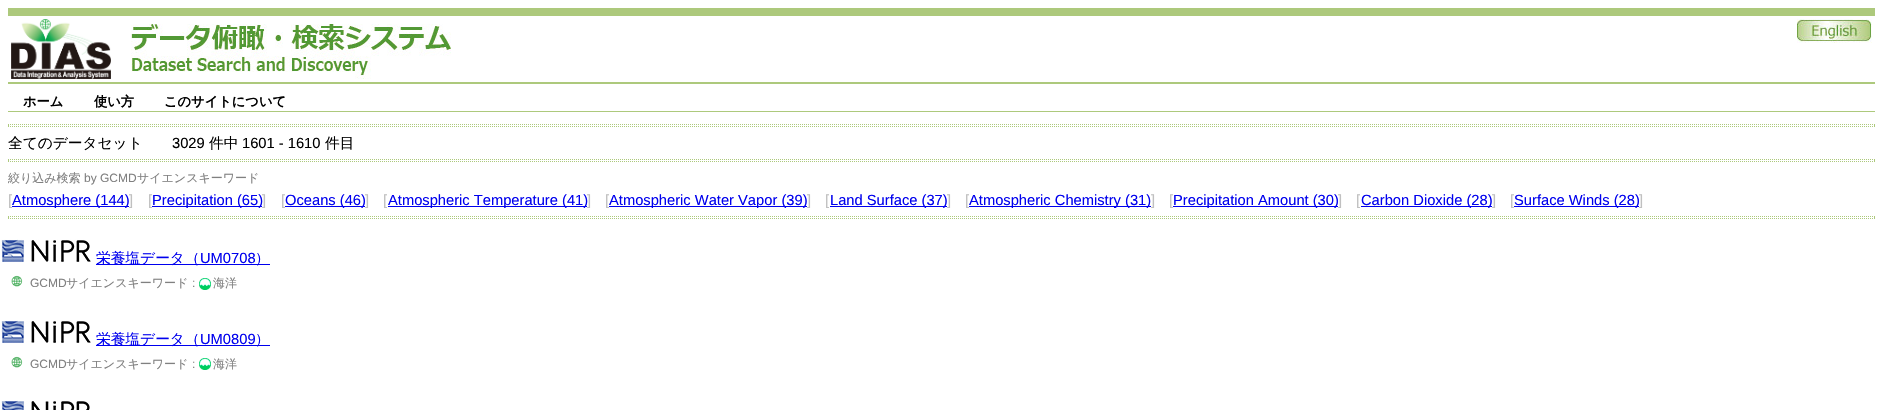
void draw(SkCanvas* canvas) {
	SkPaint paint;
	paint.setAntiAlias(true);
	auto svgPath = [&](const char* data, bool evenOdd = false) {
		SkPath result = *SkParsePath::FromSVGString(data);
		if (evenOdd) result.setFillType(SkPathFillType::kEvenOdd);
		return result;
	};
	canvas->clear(0xffffffff);
	paint.setColor(0xffadc97c);
	canvas->drawRect(SkRect::MakeXYWH(8, 8, 1867, 8), paint);
	canvas->drawRect(SkRect::MakeXYWH(8, 82, 1867, 2), paint);
	canvas->drawImageRect(SkImages::DeferredFromEncodedData(SkData::MakeFromFileName("img1.png")), SkRect::MakeXYWH(11, 19, 100, 60), SkSamplingOptions());
	canvas->drawImageRect(SkImages::DeferredFromEncodedData(SkData::MakeFromFileName("img2.png")), SkRect::MakeXYWH(131, 24, 320, 55), SkSamplingOptions());
	canvas->drawImageRect(SkImages::DeferredFromEncodedData(SkData::MakeFromFileName("img3.png")), SkRect::MakeXYWH(1797, 19, 75, 24), SkSamplingOptions());
	canvas->drawRect(SkRect::MakeXYWH(8, 111, 1867, 1), paint);
	SkFont f1(fontMgr->matchFamilyStyle("WenQuanYi Zen Hei", SkFontStyle::Bold()), 13.25);
	f1.setSubpixel(true);
	paint.setColor(0xff000000);
	canvas->drawString("ホーム", 23, 106, f1, paint);
	canvas->drawString("使い方", 94, 106, f1, paint);
	canvas->drawString("このサイトについて", 164, 106, f1, paint);
	paint.setStroke(true);
	paint.setStrokeWidth(1);
	paint.setColor(0xffadc97c);
	paint.setPathEffect(SkDashPathEffect::Make({{1, 1}}, 0));
	canvas->drawPath(svgPath("M8 124.5H1875"), paint);
	paint.setPathEffect(nullptr);
	paint.setStroke(false);
	canvas->drawRect(SkRect::MakeXYWH(1874, 124, 1, 3), paint);
	paint.setStroke(true);
	paint.setPathEffect(SkDashPathEffect::Make({{1, 1}}, 0));
	canvas->drawPath(svgPath("M8 126.5H1875"), paint);
	paint.setPathEffect(nullptr);
	paint.setStroke(false);
	canvas->drawRect(SkRect::MakeXYWH(8, 124, 1, 3), paint);
	SkFont f2(fontMgr->matchFamilyStyle("WenQuanYi Zen Hei", SkFontStyle(500, SkFontStyle::kNormal_Width, SkFontStyle::kUpright_Slant)), 14.7);
	f2.setSubpixel(true);
	paint.setColor(0xff000000);
	canvas->drawString("全てのデータセット", 8, 148, f2, paint);
	SkFont f3(fontMgr->matchFamilyStyle("Liberation Sans", SkFontStyle::Normal()), 14.7);
	f3.setSubpixel(true);
	canvas->drawString("3029", 172, 148, f3, paint);
	canvas->drawString("件中", 209, 148, f2, paint);
	canvas->drawString("1601 - 1610", 242, 148, f3, paint);
	canvas->drawString("件目", 325, 148, f2, paint);
	paint.setStroke(true);
	paint.setColor(0xffadc97c);
	paint.setPathEffect(SkDashPathEffect::Make({{1, 1}}, 0));
	canvas->drawPath(svgPath("M8 159.5H1875"), paint);
	paint.setPathEffect(nullptr);
	paint.setStroke(false);
	canvas->drawRect(SkRect::MakeXYWH(1874, 159, 1, 3), paint);
	paint.setStroke(true);
	paint.setPathEffect(SkDashPathEffect::Make({{1, 1}}, 0));
	canvas->drawPath(svgPath("M8 161.5H1875"), paint);
	paint.setPathEffect(nullptr);
	paint.setStroke(false);
	canvas->drawRect(SkRect::MakeXYWH(8, 159, 1, 3), paint);
	SkFont f4(fontMgr->matchFamilyStyle("WenQuanYi Zen Hei", SkFontStyle(500, SkFontStyle::kNormal_Width, SkFontStyle::kUpright_Slant)), 12);
	f4.setSubpixel(true);
	paint.setColor(0xff808080);
	canvas->drawString("絞り込み検索", 8, 182, f4, paint);
	SkFont f5(fontMgr->matchFamilyStyle("Liberation Sans", SkFontStyle::Normal()), 12);
	f5.setSubpixel(true);
	canvas->drawString("by GCMD", 84, 182, f5, paint);
	canvas->drawString("サイエンスキーワード", 137, 182, f4, paint);
	paint.setColor(0xffc0c0c0);
	canvas->drawString("[", 8, 205, f3, paint);
	paint.setColor(0xff0000ee);
	canvas->drawRect(SkRect::MakeXYWH(12, 206, 117, 1), paint);
	canvas->drawString("Atmosphere (144)", 12, 205, f3, paint);
	paint.setColor(0xffc0c0c0);
	canvas->drawString("]", 129, 205, f3, paint);
	canvas->drawString("[", 148, 205, f3, paint);
	paint.setColor(0xff0000ee);
	canvas->drawRect(SkRect::MakeXYWH(152, 206, 110, 1), paint);
	canvas->drawString("Precipitation (65)", 152, 205, f3, paint);
	paint.setColor(0xffc0c0c0);
	canvas->drawString("]", 262, 205, f3, paint);
	canvas->drawString("[", 281, 205, f3, paint);
	paint.setColor(0xff0000ee);
	canvas->drawRect(SkRect::MakeXYWH(285, 206, 80, 1), paint);
	canvas->drawString("Oceans (46)", 285, 205, f3, paint);
	paint.setColor(0xffc0c0c0);
	canvas->drawString("]", 365, 205, f3, paint);
	canvas->drawString("[", 383, 205, f3, paint);
	paint.setColor(0xff0000ee);
	canvas->drawRect(SkRect::MakeXYWH(388, 206, 199, 1), paint);
	canvas->drawString("Atmospheric Temperature (41)", 388, 205, f3, paint);
	paint.setColor(0xffc0c0c0);
	canvas->drawString("]", 587, 205, f3, paint);
	canvas->drawString("[", 605, 205, f3, paint);
	paint.setColor(0xff0000ee);
	canvas->drawRect(SkRect::MakeXYWH(609, 206, 198, 1), paint);
	canvas->drawString("Atmospheric Water Vapor (39)", 609, 205, f3, paint);
	paint.setColor(0xffc0c0c0);
	canvas->drawString("]", 807, 205, f3, paint);
	canvas->drawString("[", 825, 205, f3, paint);
	paint.setColor(0xff0000ee);
	canvas->drawRect(SkRect::MakeXYWH(830, 206, 117, 1), paint);
	canvas->drawString("Land Surface (37)", 830, 205, f3, paint);
	paint.setColor(0xffc0c0c0);
	canvas->drawString("]", 947, 205, f3, paint);
	canvas->drawString("[", 965, 205, f3, paint);
	paint.setColor(0xff0000ee);
	canvas->drawRect(SkRect::MakeXYWH(969, 206, 182, 1), paint);
	canvas->drawString("Atmospheric Chemistry (31)", 969, 205, f3, paint);
	paint.setColor(0xffc0c0c0);
	canvas->drawString("]", 1151, 205, f3, paint);
	canvas->drawString("[", 1169, 205, f3, paint);
	paint.setColor(0xff0000ee);
	canvas->drawRect(SkRect::MakeXYWH(1173, 206, 165, 1), paint);
	canvas->drawString("Precipitation Amount (30)", 1173, 205, f3, paint);
	paint.setColor(0xffc0c0c0);
	canvas->drawString("]", 1338, 205, f3, paint);
	canvas->drawString("[", 1356, 205, f3, paint);
	paint.setColor(0xff0000ee);
	canvas->drawRect(SkRect::MakeXYWH(1361, 206, 131, 1), paint);
	canvas->drawString("Carbon Dioxide (28)", 1361, 205, f3, paint);
	paint.setColor(0xffc0c0c0);
	canvas->drawString("]", 1492, 205, f3, paint);
	canvas->drawString("[", 1510, 205, f3, paint);
	paint.setColor(0xff0000ee);
	canvas->drawRect(SkRect::MakeXYWH(1514, 206, 125, 1), paint);
	canvas->drawString("Surface Winds (28)", 1514, 205, f3, paint);
	paint.setColor(0xffc0c0c0);
	canvas->drawString("]", 1639, 205, f3, paint);
	paint.setStroke(true);
	paint.setColor(0xffadc97c);
	paint.setPathEffect(SkDashPathEffect::Make({{1, 1}}, 0));
	canvas->drawPath(svgPath("M8 216.5H1875"), paint);
	paint.setPathEffect(nullptr);
	paint.setStroke(false);
	canvas->drawRect(SkRect::MakeXYWH(1874, 216, 1, 3), paint);
	paint.setStroke(true);
	paint.setPathEffect(SkDashPathEffect::Make({{1, 1}}, 0));
	canvas->drawPath(svgPath("M8 218.5H1875"), paint);
	paint.setPathEffect(nullptr);
	paint.setStroke(false);
	canvas->drawRect(SkRect::MakeXYWH(8, 216, 1, 3), paint);
	canvas->drawImageRect(SkImages::DeferredFromEncodedData(SkData::MakeFromFileName("img4.png")), SkRect::MakeXYWH(1, 239, 90, 23), SkSamplingOptions());
	paint.setColor(0xff0000ee);
	canvas->drawRect(SkRect::MakeXYWH(96, 264, 174, 1), paint);
	canvas->drawString("栄養塩データ（", 96, 263, f2, paint);
	canvas->drawString("UM0708", 200, 263, f3, paint);
	canvas->drawString("）", 255, 263, f2, paint);
	canvas->drawImageRect(SkImages::DeferredFromEncodedData(SkData::MakeFromFileName("img5.png")), SkRect::MakeXYWH(11, 275, 12, 12), SkSamplingOptions());
	paint.setColor(0xff808080);
	canvas->drawString("GCMD", 30, 287, f5, paint);
	canvas->drawString("サイエンスキーワード", 66, 287, f4, paint);
	canvas->drawString(":", 192, 287, f5, paint);
	canvas->drawImageRect(SkImages::DeferredFromEncodedData(SkData::MakeFromFileName("img6.png")), SkRect::MakeXYWH(199, 278, 12, 12), SkSamplingOptions());
	canvas->drawString("海洋", 213, 287, f4, paint);
	canvas->drawImageRect(SkImages::DeferredFromEncodedData(SkData::MakeFromFileName("img4.png")), SkRect::MakeXYWH(1, 320, 90, 23), SkSamplingOptions());
	paint.setColor(0xff0000ee);
	canvas->drawRect(SkRect::MakeXYWH(96, 345, 174, 1), paint);
	canvas->drawString("栄養塩データ（", 96, 344, f2, paint);
	canvas->drawString("UM0809", 200, 344, f3, paint);
	canvas->drawString("）", 255, 344, f2, paint);
	canvas->drawImageRect(SkImages::DeferredFromEncodedData(SkData::MakeFromFileName("img5.png")), SkRect::MakeXYWH(11, 356, 12, 12), SkSamplingOptions());
	paint.setColor(0xff808080);
	canvas->drawString("GCMD", 30, 368, f5, paint);
	canvas->drawString("サイエンスキーワード", 66, 368, f4, paint);
	canvas->drawString(":", 192, 368, f5, paint);
	canvas->drawImageRect(SkImages::DeferredFromEncodedData(SkData::MakeFromFileName("img6.png")), SkRect::MakeXYWH(199, 358, 12, 12), SkSamplingOptions());
	canvas->drawString("海洋", 213, 368, f4, paint);
	canvas->drawImageRect(SkImages::DeferredFromEncodedData(SkData::MakeFromFileName("img7.png")), SkRect::MakeXYWH(1, 400, 89, 10), SkSamplingOptions());
}
